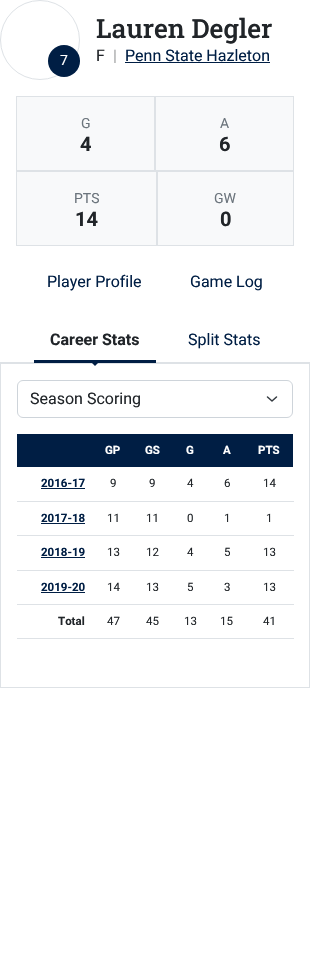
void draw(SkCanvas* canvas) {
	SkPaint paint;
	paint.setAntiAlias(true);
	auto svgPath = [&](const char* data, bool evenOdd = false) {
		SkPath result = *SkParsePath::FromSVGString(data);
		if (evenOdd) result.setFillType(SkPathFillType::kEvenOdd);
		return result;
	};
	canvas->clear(0xffffffff);
	paint.setStroke(true);
	paint.setStrokeWidth(1);
	paint.setColor(0xffdee2e6);
	canvas->drawCircle(40, 40, 39.5, paint);
	paint.setStroke(false);
	paint.setColor(0xff001e44);
	canvas->drawCircle(64, 61, 16, paint);
	SkFont f1(fontMgr->matchFamilyStyle("Roboto", SkFontStyle::Normal()), 14);
	f1.setSubpixel(true);
	paint.setColor(0xffffffff);
	canvas->drawString("7", 60, 65, f1, paint);
	SkFont f2(fontMgr->matchFamilyStyle("Roboto Slab", SkFontStyle(500, SkFontStyle::kNormal_Width, SkFontStyle::kUpright_Slant)), 26.5);
	f2.setSubpixel(true);
	paint.setColor(0xff212529);
	canvas->drawString("Lauren Degler", 96, 38, f2, paint);
	SkFont f3(fontMgr->matchFamilyStyle("Roboto", SkFontStyle::Normal()), 16);
	f3.setSubpixel(true);
	canvas->drawString("F", 96, 61, f3, paint);
	paint.setColor(0xffa6a8a9);
	canvas->drawString("|", 113, 61, f3, paint);
	paint.setColor(0xff001e44);
	canvas->drawString("Penn State Hazleton", 125, 61, f3, paint);
	canvas->drawRect(SkRect::MakeXYWH(125, 62, 145, 1), paint);
	paint.setColor(0xfff8f9fa);
	canvas->drawRect(SkRect::MakeXYWH(17, 97, 276, 148), paint);
	paint.setStroke(true);
	paint.setColor(0xffdee2e6);
	canvas->drawRect(SkRect::MakeXYWH(16.5, 96.5, 138, 74), paint);
	paint.setStroke(false);
	paint.setColor(0xff6c757d);
	canvas->drawString("G", 81, 128, f1, paint);
	SkFont f4(fontMgr->matchFamilyStyle("Roboto", SkFontStyle::Bold()), 20);
	f4.setSubpixel(true);
	paint.setColor(0xff212529);
	canvas->drawString("4", 80, 151, f4, paint);
	paint.setStroke(true);
	paint.setColor(0xffdee2e6);
	canvas->drawRect(SkRect::MakeXYWH(155.5, 96.5, 138, 74), paint);
	paint.setStroke(false);
	paint.setColor(0xff6c757d);
	canvas->drawString("A", 220, 128, f1, paint);
	paint.setColor(0xff212529);
	canvas->drawString("6", 219, 151, f4, paint);
	paint.setStroke(true);
	paint.setColor(0xffdee2e6);
	canvas->drawRect(SkRect::MakeXYWH(16.5, 171.5, 140, 74), paint);
	paint.setStroke(false);
	paint.setColor(0xff6c757d);
	canvas->drawString("PTS", 74, 203, f1, paint);
	paint.setColor(0xff212529);
	canvas->drawString("14", 75, 226, f4, paint);
	paint.setStroke(true);
	paint.setColor(0xffdee2e6);
	canvas->drawRect(SkRect::MakeXYWH(157.5, 171.5, 136, 74), paint);
	paint.setStroke(false);
	paint.setColor(0xff6c757d);
	canvas->drawString("GW", 214, 203, f1, paint);
	paint.setColor(0xff212529);
	canvas->drawString("0", 220, 226, f4, paint);
	paint.setColor(0xffdee2e6);
	canvas->drawRect(SkRect::MakeXYWH(0, 362, 310, 1), paint);
	paint.setColor(0xff001e44);
	canvas->drawString("Player Profile", 47, 287, f3, paint);
	canvas->drawString("Game Log", 190, 287, f3, paint);
	canvas->drawRect(SkRect::MakeXYWH(34, 360, 122, 3), paint);
	SkFont f5(fontMgr->matchFamilyStyle("Roboto", SkFontStyle::Bold()), 16);
	f5.setSubpixel(true);
	paint.setColor(0xff212529);
	canvas->drawString("Career Stats", 50, 345, f5, paint);
	paint.setStroke(true);
	paint.setColor(0xffdee2e6);
	canvas->drawRect(SkRect::MakeXYWH(0.5, 363.5, 309, 324), paint);
	paint.setStroke(false);
	paint.setColor(0xff001e44);
	canvas->drawPath(svgPath("M89 360H101L95 366Z"), paint);
	canvas->drawString("Split Stats", 188, 345, f3, paint);
	paint.setStroke(true);
	paint.setStrokeWidth(1.5);
	paint.setStrokeCap(SkPaint::kRound_Cap);
	paint.setStrokeJoin(SkPaint::kRound_Join);
	paint.setColor(0xff343a40);
	canvas->drawPath(svgPath("M267.5 397L272 401L276.5 397"), paint);
	paint.setStrokeWidth(1);
	paint.setStrokeCap(SkPaint::kButt_Cap);
	paint.setStrokeJoin(SkPaint::kMiter_Join);
	paint.setColor(0xffced4da);
	canvas->drawRoundRect(SkRect::MakeXYWH(17.5, 380.5, 275, 37), 5.5, 5.5, paint);
	paint.setStroke(false);
	paint.setColor(0xff212529);
	canvas->drawString("Season Scoring", 30, 404, f3, paint);
	paint.setColor(0xff001e44);
	canvas->drawRect(SkRect::MakeXYWH(17, 434, 276, 33), paint);
	SkFont f6(fontMgr->matchFamilyStyle("Roboto", SkFontStyle::Bold()), 11.5);
	f6.setSubpixel(true);
	paint.setColor(0xffffffff);
	canvas->drawString("GP", 105, 454, f6, paint);
	canvas->drawString("GS", 145, 454, f6, paint);
	canvas->drawString("G", 186, 454, f6, paint);
	canvas->drawString("A", 223, 454, f6, paint);
	canvas->drawString("PTS", 258, 454, f6, paint);
	paint.setColor(0xff001e44);
	canvas->drawString("2016-17", 41, 487, f6, paint);
	canvas->drawRect(SkRect::MakeXYWH(41, 488, 44, 1), paint);
	SkFont f7(fontMgr->matchFamilyStyle("Roboto", SkFontStyle::Normal()), 11.5);
	f7.setSubpixel(true);
	paint.setColor(0xff212529);
	canvas->drawString("9", 110, 487, f7, paint);
	canvas->drawString("9", 149, 487, f7, paint);
	canvas->drawString("4", 187, 487, f7, paint);
	canvas->drawString("6", 224, 487, f7, paint);
	paint.setColor(0xffdee2e6);
	canvas->drawRect(SkRect::MakeXYWH(17, 501, 277, 1), paint);
	paint.setColor(0xff212529);
	canvas->drawString("14", 263, 487, f7, paint);
	paint.setColor(0xff001e44);
	canvas->drawString("2017-18", 41, 522, f6, paint);
	canvas->drawRect(SkRect::MakeXYWH(41, 523, 44, 1), paint);
	paint.setColor(0xff212529);
	canvas->drawString("11", 107, 522, f7, paint);
	canvas->drawString("11", 146, 522, f7, paint);
	canvas->drawString("0", 187, 522, f7, paint);
	canvas->drawString("1", 224, 522, f7, paint);
	paint.setColor(0xffdee2e6);
	canvas->drawRect(SkRect::MakeXYWH(17, 535, 277, 1), paint);
	paint.setColor(0xff212529);
	canvas->drawString("1", 266, 522, f7, paint);
	paint.setColor(0xff001e44);
	canvas->drawString("2018-19", 41, 556, f6, paint);
	canvas->drawRect(SkRect::MakeXYWH(41, 557, 44, 1), paint);
	paint.setColor(0xff212529);
	canvas->drawString("13", 107, 556, f7, paint);
	canvas->drawString("12", 146, 556, f7, paint);
	canvas->drawString("4", 187, 556, f7, paint);
	canvas->drawString("5", 224, 556, f7, paint);
	paint.setColor(0xffdee2e6);
	canvas->drawRect(SkRect::MakeXYWH(17, 570, 277, 1), paint);
	paint.setColor(0xff212529);
	canvas->drawString("13", 263, 556, f7, paint);
	paint.setColor(0xff001e44);
	canvas->drawString("2019-20", 41, 591, f6, paint);
	canvas->drawRect(SkRect::MakeXYWH(41, 592, 44, 1), paint);
	paint.setColor(0xff212529);
	canvas->drawString("14", 107, 591, f7, paint);
	canvas->drawString("13", 146, 591, f7, paint);
	canvas->drawString("5", 187, 591, f7, paint);
	canvas->drawString("3", 224, 591, f7, paint);
	paint.setColor(0xffdee2e6);
	canvas->drawRect(SkRect::MakeXYWH(17, 604, 277, 1), paint);
	paint.setColor(0xff212529);
	canvas->drawString("13", 263, 591, f7, paint);
	canvas->drawString("Total", 58, 625, f6, paint);
	canvas->drawString("47", 107, 625, f7, paint);
	canvas->drawString("45", 146, 625, f7, paint);
	canvas->drawString("13", 184, 625, f7, paint);
	canvas->drawString("15", 220, 625, f7, paint);
	paint.setColor(0xffdee2e6);
	canvas->drawRect(SkRect::MakeXYWH(17, 638, 277, 1), paint);
	paint.setColor(0xff212529);
	canvas->drawString("41", 263, 625, f7, paint);
}
